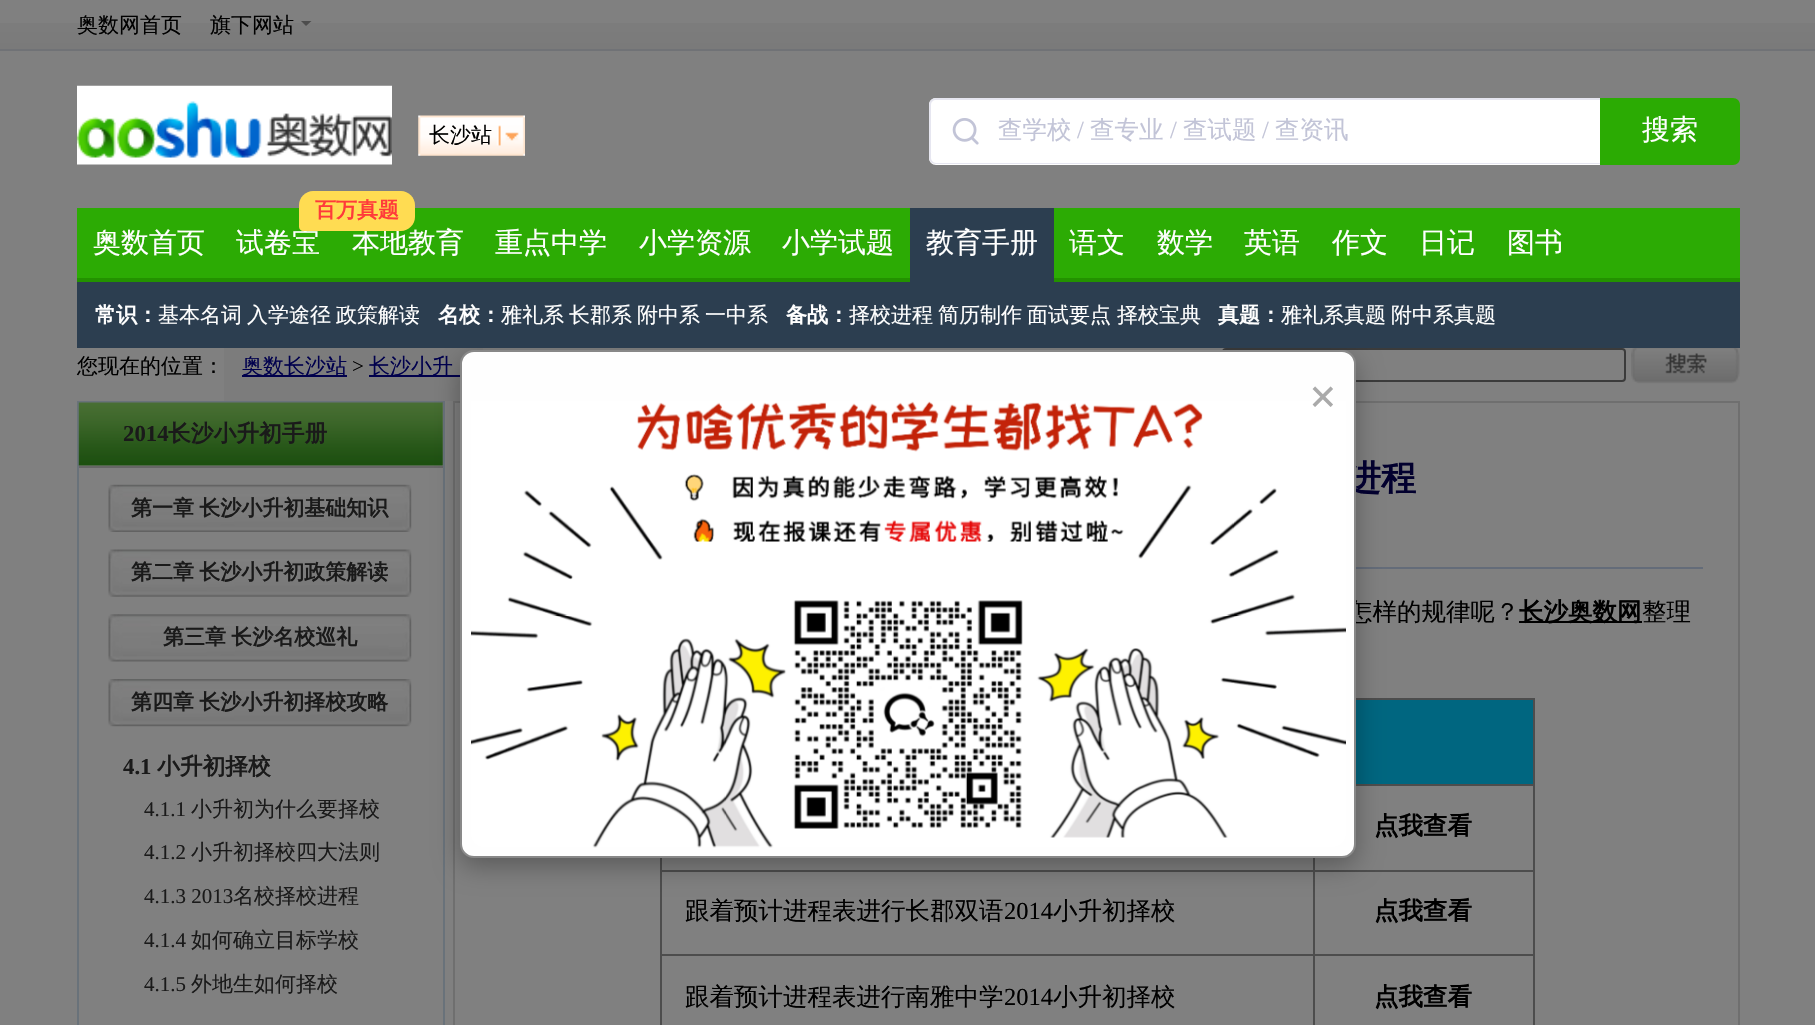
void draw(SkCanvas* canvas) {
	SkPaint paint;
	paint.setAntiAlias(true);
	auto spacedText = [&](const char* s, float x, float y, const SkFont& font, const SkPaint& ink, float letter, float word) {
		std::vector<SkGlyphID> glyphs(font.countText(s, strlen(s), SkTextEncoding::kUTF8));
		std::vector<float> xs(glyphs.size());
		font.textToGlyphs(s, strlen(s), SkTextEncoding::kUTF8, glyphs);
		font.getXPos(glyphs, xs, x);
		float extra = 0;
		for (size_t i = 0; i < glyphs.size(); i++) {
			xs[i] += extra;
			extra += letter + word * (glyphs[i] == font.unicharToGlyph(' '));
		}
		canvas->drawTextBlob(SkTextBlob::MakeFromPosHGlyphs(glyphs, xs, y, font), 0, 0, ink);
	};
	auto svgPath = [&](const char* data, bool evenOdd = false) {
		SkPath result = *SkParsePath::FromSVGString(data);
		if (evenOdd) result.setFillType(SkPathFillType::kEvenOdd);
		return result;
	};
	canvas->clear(0xff808080);
	canvas->drawImageRect(SkImages::DeferredFromEncodedData(SkData::MakeFromFileName("img1.png")), SkRect::MakeXYWH(0, 23, 1815, 26), SkSamplingOptions());
	paint.setColor(0xff707276);
	canvas->drawRect(SkRect::MakeXYWH(0, 49, 1815, 2), paint);
	SkFont f1(fontMgr->matchFamilyStyle("WenQuanYi Zen Hei", SkFontStyle(500, SkFontStyle::kNormal_Width, SkFontStyle::kUpright_Slant)), 21);
	f1.setSubpixel(true);
	paint.setColor(0xff000000);
	canvas->drawString("奥数网首页", 77, 32, f1, paint);
	canvas->drawString("旗下网站", 210, 32, f1, paint);
	paint.setColor(0xff4d4d4d);
	canvas->drawPath(svgPath("M301 21H311.5L306 26Z"), paint);
	canvas->drawImageRect(SkImages::DeferredFromEncodedData(SkData::MakeFromFileName("img2.png")), SkRect::MakeXYWH(77, 85, 315, 80), SkSamplingOptions());
	canvas->drawImageRect(SkImages::DeferredFromEncodedData(SkData::MakeFromFileName("img3.png")), SkRect::MakeXYWH(418, 115, 107, 41), SkSamplingOptions());
	paint.setColor(0xff000000);
	canvas->drawString("长沙站", 429, 142, f1, paint);
	paint.setColor(0xffffffff);
	canvas->drawPath(svgPath("M936 98H1600V165H936C932 165 929 162 929 158V105C929 101 932 98 936 98Z"), paint);
	paint.setColor(0xffe6e6f0);
	canvas->drawPath(svgPath("M936 98H1600V164H936C932 164 929 161 929 158V105C929 101 932 98 936 98ZM936 100H1600V163H936C933 163 931 160 931 158V105C931 102 933 100 936 100Z", true), paint);
	canvas->drawImageRect(SkImages::DeferredFromEncodedData(SkData::MakeFromFileName("img4.png")), SkRect::MakeXYWH(952, 118, 27, 27), SkSamplingOptions());
	SkFont f2(fontMgr->matchFamilyStyle("WenQuanYi Zen Hei", SkFontStyle(500, SkFontStyle::kNormal_Width, SkFontStyle::kUpright_Slant)), 24.5);
	f2.setSubpixel(true);
	paint.setColor(0xffc2c4d7);
	canvas->drawString("查学校", 998, 138, f2, paint);
	SkFont f3(fontMgr->matchFamilyStyle("Liberation Serif", SkFontStyle::Normal()), 24.5);
	f3.setSubpixel(true);
	canvas->drawString("/", 1077, 138, f3, paint);
	canvas->drawString("查专业", 1090, 138, f2, paint);
	canvas->drawString("/", 1170, 138, f3, paint);
	canvas->drawString("查试题", 1183, 138, f2, paint);
	canvas->drawString("/", 1262, 138, f3, paint);
	canvas->drawString("查资讯", 1275, 138, f2, paint);
	paint.setColor(0xff2bab03);
	canvas->drawPath(svgPath("M1600 98H1733C1737 98 1740 101 1740 105V158C1740 162 1737 165 1733 165H1600Z"), paint);
	SkFont f4(fontMgr->matchFamilyStyle("WenQuanYi Zen Hei", SkFontStyle(500, SkFontStyle::kNormal_Width, SkFontStyle::kUpright_Slant)), 28);
	f4.setSubpixel(true);
	paint.setColor(0xffffffff);
	canvas->drawString("搜索", 1642, 139, f4, paint);
	paint.setColor(0xff2cab04);
	canvas->drawRect(SkRect::MakeXYWH(77, 208, 1663, 70), paint);
	paint.setColor(0xff239200);
	canvas->drawRect(SkRect::MakeXYWH(77, 278, 1663, 4), paint);
	paint.setColor(0xffffffff);
	canvas->drawString("奥数首页", 93, 252, f4, paint);
	canvas->drawString("试卷宝", 236, 252, f4, paint);
	canvas->drawString("本地教育", 352, 252, f4, paint);
	paint.setColor(0xffffdc52);
	canvas->drawPath(svgPath("M313 191H401C408.5 191 415 197.5 415 205V217C415 224.5 408.5 231 401 231H303C301 231 299 229 299 227V205C299 197.5 305.5 191 313 191Z"), paint);
	SkFont f5(fontMgr->matchFamilyStyle("WenQuanYi Zen Hei", SkFontStyle::Bold()), 21);
	f5.setSubpixel(true);
	paint.setColor(0xffff3a3a);
	canvas->drawString("百万真题", 315, 217, f5, paint);
	paint.setColor(0xffffffff);
	canvas->drawString("重点中学", 495, 252, f4, paint);
	canvas->drawString("小学资源", 639, 252, f4, paint);
	canvas->drawString("小学试题", 782, 252, f4, paint);
	paint.setColor(0xff2c3e50);
	canvas->drawRect(SkRect::MakeXYWH(910, 208, 144, 74), paint);
	paint.setColor(0xffffffff);
	canvas->drawString("教育手册", 926, 252, f4, paint);
	canvas->drawString("语文", 1069, 252, f4, paint);
	canvas->drawString("数学", 1157, 252, f4, paint);
	canvas->drawString("英语", 1244, 252, f4, paint);
	canvas->drawString("作文", 1332, 252, f4, paint);
	canvas->drawString("日记", 1419, 252, f4, paint);
	canvas->drawString("图书", 1507, 252, f4, paint);
	paint.setColor(0xff7c7c7c);
	canvas->drawRect(SkRect::MakeXYWH(224, 348, 259, 53), paint);
	paint.setColor(0xff00004d);
	canvas->drawRect(SkRect::MakeXYWH(369, 375, 91, 2), paint);
	paint.setStroke(true);
	paint.setStrokeWidth(2);
	paint.setColor(0xff3b3b3b);
	canvas->drawRoundRect(SkRect::MakeXYWH(1223, 349, 402, 32), 3, 3, paint);
	paint.setColor(0xff69727a);
	canvas->drawRect(SkRect::MakeXYWH(78, 402, 366, 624), paint);
	canvas->drawImageRect(SkImages::DeferredFromEncodedData(SkData::MakeFromFileName("img7.png")), SkRect::MakeXYWH(78, 402, 365, 64), SkSamplingOptions());
	paint.setStroke(false);
	paint.setColor(0xff666666);
	canvas->drawRect(SkRect::MakeXYWH(79, 466, 364, 2), paint);
	paint.setStroke(true);
	paint.setColor(0xff6f6f6f);
	canvas->drawRect(SkRect::MakeXYWH(454, 402, 1285, 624), paint);
	paint.setStroke(false);
	paint.setColor(0xff646c79);
	canvas->drawRect(SkRect::MakeXYWH(1356, 567, 347, 2), paint);
	paint.setColor(0xff006680);
	canvas->drawRect(SkRect::MakeXYWH(1356, 700, 177, 84), paint);
	paint.setColor(0xff4d4d4d);
	canvas->drawRect(SkRect::MakeXYWH(1356, 698, 179, 2), paint);
	canvas->drawRect(SkRect::MakeXYWH(1356, 784, 179, 2), paint);
	canvas->drawRect(SkRect::MakeXYWH(1313, 870, 222, 2), paint);
	canvas->drawRect(SkRect::MakeXYWH(1313, 954, 222, 2), paint);
	canvas->drawRect(SkRect::MakeXYWH(1313, 954, 2, 71), paint);
	canvas->drawRect(SkRect::MakeXYWH(660, 954, 654, 2), paint);
	canvas->drawRect(SkRect::MakeXYWH(1313, 870, 2, 86), paint);
	canvas->drawRect(SkRect::MakeXYWH(660, 870, 654, 2), paint);
	canvas->drawRect(SkRect::MakeXYWH(1313, 858, 2, 14), paint);
	canvas->drawRect(SkRect::MakeXYWH(660, 954, 2, 71), paint);
	canvas->drawRect(SkRect::MakeXYWH(660, 858, 2, 98), paint);
	paint.setColor(0x4d000000);
	paint.setMaskFilter(SkMaskFilter::MakeBlur(kNormal_SkBlurStyle, 13));
	canvas->drawRoundRect(SkRect::MakeXYWH(460, 359, 896, 507), 14, 14, paint);
	paint.setMaskFilter(nullptr);
	paint.setColor(0xff2c3e50);
	canvas->drawRect(SkRect::MakeXYWH(77, 282, 1663, 66), paint);
	paint.setColor(0xffffffff);
	canvas->drawString("常识：", 95, 322, f5, paint);
	canvas->drawString("基本名词", 158, 322, f1, paint);
	canvas->drawString("入学途径", 247, 322, f1, paint);
	canvas->drawString("政策解读", 336, 322, f1, paint);
	canvas->drawString("名校：", 438, 322, f5, paint);
	canvas->drawString("雅礼系", 501, 322, f1, paint);
	canvas->drawString("长郡系", 569, 322, f1, paint);
	canvas->drawString("附中系", 637, 322, f1, paint);
	canvas->drawString("一中系", 705, 322, f1, paint);
	canvas->drawString("备战：", 786, 322, f5, paint);
	canvas->drawString("择校进程", 849, 322, f1, paint);
	canvas->drawString("简历制作", 938, 322, f1, paint);
	canvas->drawString("面试要点", 1027, 322, f1, paint);
	canvas->drawString("择校宝典", 1117, 322, f1, paint);
	canvas->drawString("真题：", 1218, 322, f5, paint);
	canvas->drawString("雅礼系真题", 1281, 322, f1, paint);
	canvas->drawString("附中系真题", 1391, 322, f1, paint);
	paint.setColor(0xff000000);
	canvas->drawString("您现在的位置：", 77, 373, f1, paint);
	paint.setColor(0xff00004d);
	canvas->drawRect(SkRect::MakeXYWH(242, 375, 105, 2), paint);
	canvas->drawString("奥数长沙站", 242, 373, f1, paint);
	SkFont f6(fontMgr->matchFamilyStyle("Liberation Serif", SkFontStyle::Normal()), 21);
	f6.setSubpixel(true);
	paint.setColor(0xff000000);
	canvas->drawString(">", 352, 373, f6, paint);
	paint.setColor(0xff00004d);
	canvas->drawString("长沙小升", 369, 373, f1, paint);
	canvas->drawImageRect(SkImages::DeferredFromEncodedData(SkData::MakeFromFileName("img5.png")), SkRect::MakeXYWH(1631, 348, 109, 36), SkSamplingOptions());
	SkFont f7(fontMgr->matchFamilyStyle("WenQuanYi Zen Hei", SkFontStyle::Bold()), 35);
	f7.setSubpixel(true);
	paint.setColor(0xff02002e);
	canvas->drawString("进程", 1346, 490, f7, paint);
	paint.setColor(0xff000000);
	canvas->drawString("怎样的规律呢？", 1348, 620, f2, paint);
	paint.setColor(0xfffefefe);
	canvas->drawRoundRect(SkRect::MakeXYWH(461, 351, 894, 506), 13, 13, paint);
	paint.setStroke(true);
	paint.setColor(0xff888888);
	canvas->drawRoundRect(SkRect::MakeXYWH(461, 351, 894, 506), 13, 13, paint);
	canvas->drawImageRect(SkImages::DeferredFromEncodedData(SkData::MakeFromFileName("img6.png")), SkRect::MakeXYWH(471, 401, 875, 447), SkSamplingOptions());
	SkFont f8(fontMgr->matchFamilyStyle("Liberation Serif", SkFontStyle::Bold()), 49);
	f8.setSubpixel(true);
	paint.setStroke(false);
	paint.setColor(0xffaaaaaa);
	canvas->drawString("×", 1309, 413, f8, paint);
	SkFont f9(fontMgr->matchFamilyStyle("Liberation Serif", SkFontStyle::Bold()), 22.75);
	f9.setSubpixel(true);
	paint.setColor(0xff1a1a1a);
	canvas->drawString("2014", 123, 441, f9, paint);
	SkFont f10(fontMgr->matchFamilyStyle("WenQuanYi Zen Hei", SkFontStyle::Bold()), 22.75);
	f10.setSubpixel(true);
	canvas->drawString("长沙小升初手册", 168, 441, f10, paint);
	canvas->drawImageRect(SkImages::DeferredFromEncodedData(SkData::MakeFromFileName("img8.png")), SkRect::MakeXYWH(108, 484, 304, 48), SkSamplingOptions());
	spacedText("第一章 长沙小升初基础知识", 131, 515, f5, paint, 0, -1);
	canvas->drawImageRect(SkImages::DeferredFromEncodedData(SkData::MakeFromFileName("img9.png")), SkRect::MakeXYWH(108, 549, 304, 48), SkSamplingOptions());
	spacedText("第二章 长沙小升初政策解读", 131, 579, f5, paint, 0, -1);
	canvas->drawImageRect(SkImages::DeferredFromEncodedData(SkData::MakeFromFileName("img10.png")), SkRect::MakeXYWH(108, 614, 304, 48), SkSamplingOptions());
	spacedText("第三章 长沙名校巡礼", 163, 644, f5, paint, 0, -1);
	canvas->drawImageRect(SkImages::DeferredFromEncodedData(SkData::MakeFromFileName("img11.png")), SkRect::MakeXYWH(108, 679, 304, 48), SkSamplingOptions());
	spacedText("第四章 长沙小升初择校攻略", 131, 709, f5, paint, 0, -1);
	canvas->drawString("4.1", 123, 774, f9, paint);
	canvas->drawString("小升初择校", 157, 774, f10, paint);
	canvas->drawString("4.1.1", 144, 816, f6, paint);
	canvas->drawString("小升初为什么要择校", 191, 816, f1, paint);
	canvas->drawString("4.1.2", 144, 859, f6, paint);
	canvas->drawString("小升初择校四大法则", 191, 859, f1, paint);
	canvas->drawString("4.1.3 2013", 144, 903, f6, paint);
	canvas->drawString("名校择校进程", 233, 903, f1, paint);
	canvas->drawString("4.1.4", 144, 947, f6, paint);
	canvas->drawString("如何确立目标学校", 191, 947, f1, paint);
	canvas->drawString("4.1.5", 144, 991, f6, paint);
	canvas->drawString("外地生如何择校", 191, 991, f1, paint);
	paint.setColor(0xff000000);
	canvas->drawRect(SkRect::MakeXYWH(1519, 621, 123, 2), paint);
	SkFont f11(fontMgr->matchFamilyStyle("WenQuanYi Zen Hei", SkFontStyle::Bold()), 24.5);
	f11.setSubpixel(true);
	canvas->drawString("长沙奥数网", 1519, 620, f11, paint);
	canvas->drawString("整理", 1642, 620, f2, paint);
	paint.setColor(0xff4d4d4d);
	canvas->drawRect(SkRect::MakeXYWH(1533, 954, 2, 71), paint);
	canvas->drawRect(SkRect::MakeXYWH(1533, 870, 2, 86), paint);
	canvas->drawRect(SkRect::MakeXYWH(1533, 784, 2, 88), paint);
	canvas->drawRect(SkRect::MakeXYWH(1533, 698, 2, 88), paint);
	paint.setColor(0xff000000);
	canvas->drawString("点我查看", 1374, 834, f11, paint);
	canvas->drawString("跟着预计进程表进行长郡双语", 685, 919, f2, paint);
	canvas->drawString("2014", 1004, 919, f3, paint);
	canvas->drawString("小升初择校", 1053, 919, f2, paint);
	canvas->drawString("点我查看", 1374, 919, f11, paint);
	canvas->drawString("跟着预计进程表进行南雅中学", 685, 1005, f2, paint);
	canvas->drawString("2014", 1004, 1005, f3, paint);
	canvas->drawString("小升初择校", 1053, 1005, f2, paint);
	canvas->drawString("点我查看", 1374, 1005, f11, paint);
}
